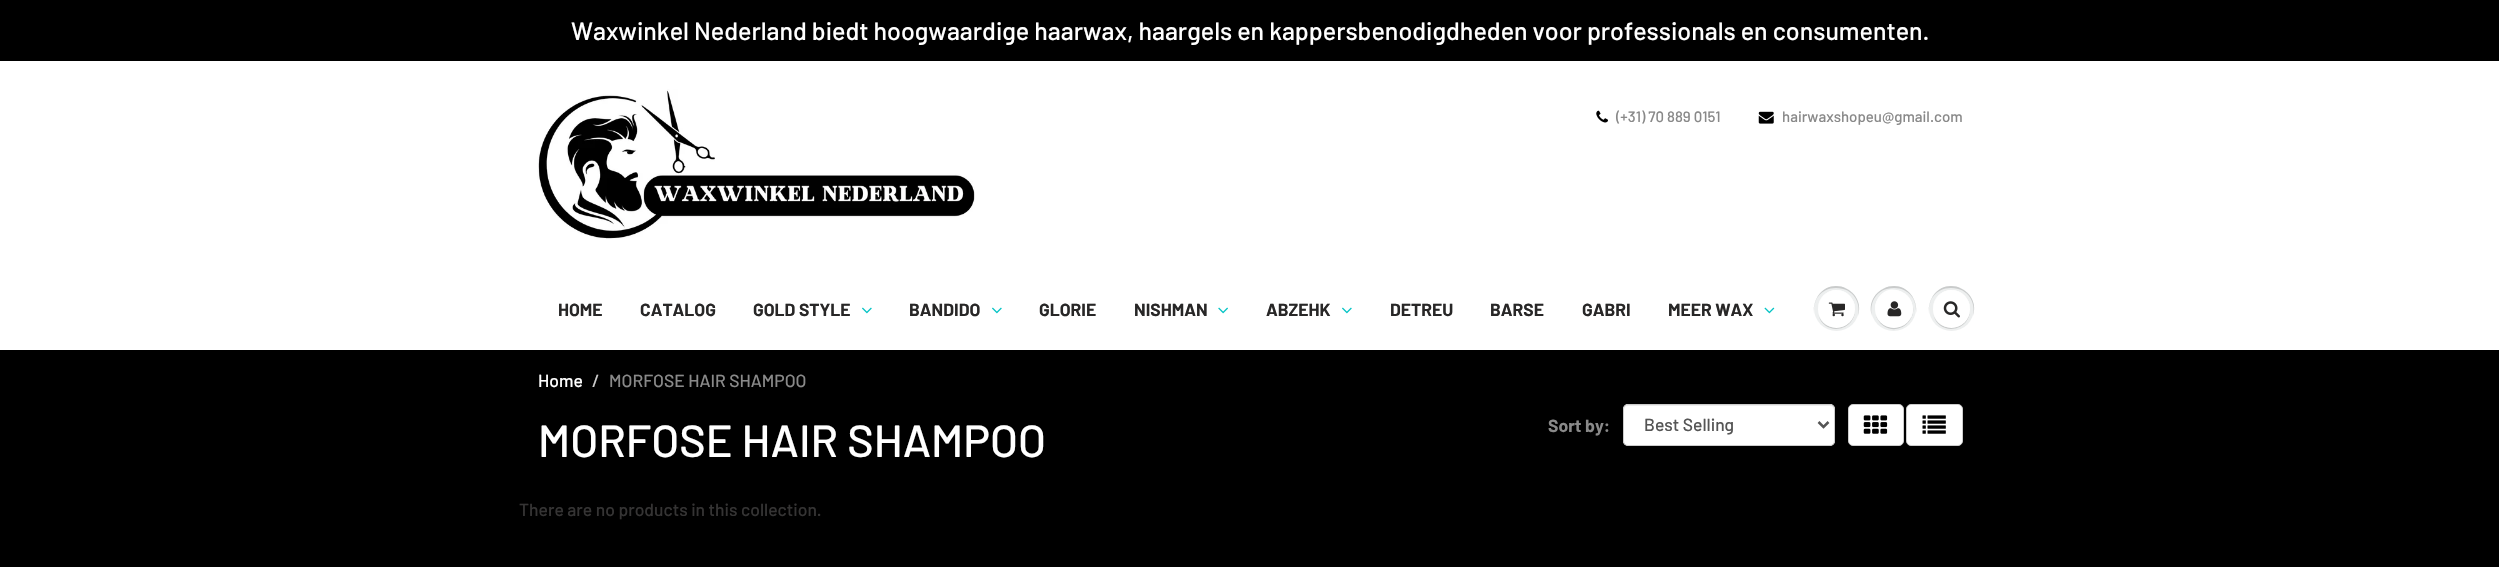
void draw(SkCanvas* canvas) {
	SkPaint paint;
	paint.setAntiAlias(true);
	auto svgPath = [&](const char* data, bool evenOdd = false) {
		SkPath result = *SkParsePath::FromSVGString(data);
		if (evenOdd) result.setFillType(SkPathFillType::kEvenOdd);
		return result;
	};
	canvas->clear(0xffffffff);
	paint.setColor(0xff000000);
	canvas->drawRect(SkRect::MakeXYWH(0, 0, 2499, 61), paint);
	SkFont f1(fontMgr->matchFamilyStyle("Barlow", SkFontStyle(500, SkFontStyle::kNormal_Width, SkFontStyle::kUpright_Slant)), 25);
	f1.setSubpixel(true);
	paint.setColor(0xffffffff);
	canvas->drawString("Waxwinkel Nederland biedt hoogwaardige haarwax, haargels en kappersbenodigdheden voor professionals en consumenten.", 571, 40, f1, paint);
	canvas->drawImageRect(SkImages::DeferredFromEncodedData(SkData::MakeFromFileName("img1.png")), SkRect::MakeXYWH(537, 89, 438, 150), SkSamplingOptions());
	canvas->drawImageRect(SkImages::DeferredFromEncodedData(SkData::MakeFromFileName("img2.png")), SkRect::MakeXYWH(1596, 110, 12, 13), SkSamplingOptions());
	SkFont f2(fontMgr->matchFamilyStyle("Barlow", SkFontStyle(500, SkFontStyle::kNormal_Width, SkFontStyle::kUpright_Slant)), 15);
	f2.setSubpixel(true);
	paint.setColor(0xff898989);
	canvas->drawString("(+31) 70 889 0151", 1616, 122, f2, paint);
	canvas->drawImageRect(SkImages::DeferredFromEncodedData(SkData::MakeFromFileName("img3.png")), SkRect::MakeXYWH(1758, 111, 16, 13), SkSamplingOptions());
	canvas->drawString("hairwaxshopeu@gmail.com", 1782, 122, f2, paint);
	SkFont f3(fontMgr->matchFamilyStyle("Barlow", SkFontStyle::Bold()), 17.5);
	f3.setSubpixel(true);
	paint.setColor(0xff282727);
	canvas->drawString("HOME", 558, 316, f3, paint);
	canvas->drawString("CATALOG", 640, 316, f3, paint);
	canvas->drawString("GOLD STYLE", 753, 316, f3, paint);
	canvas->drawImageRect(SkImages::DeferredFromEncodedData(SkData::MakeFromFileName("img4.png")), SkRect::MakeXYWH(862, 307, 10, 7), SkSamplingOptions());
	canvas->drawString("BANDIDO", 909, 316, f3, paint);
	canvas->drawImageRect(SkImages::DeferredFromEncodedData(SkData::MakeFromFileName("img4.png")), SkRect::MakeXYWH(992, 307, 10, 7), SkSamplingOptions());
	canvas->drawString("GLORIE", 1039, 316, f3, paint);
	canvas->drawString("NISHMAN", 1134, 316, f3, paint);
	canvas->drawImageRect(SkImages::DeferredFromEncodedData(SkData::MakeFromFileName("img5.png")), SkRect::MakeXYWH(1218, 307, 10, 7), SkSamplingOptions());
	canvas->drawString("ABZEHK", 1266, 316, f3, paint);
	canvas->drawImageRect(SkImages::DeferredFromEncodedData(SkData::MakeFromFileName("img4.png")), SkRect::MakeXYWH(1342, 307, 10, 7), SkSamplingOptions());
	canvas->drawString("DETREU", 1390, 316, f3, paint);
	canvas->drawString("BARSE", 1490, 316, f3, paint);
	canvas->drawString("GABRI", 1582, 316, f3, paint);
	canvas->drawString("MEER WAX", 1668, 316, f3, paint);
	canvas->drawImageRect(SkImages::DeferredFromEncodedData(SkData::MakeFromFileName("img6.png")), SkRect::MakeXYWH(1764, 307, 11, 7), SkSamplingOptions());
	paint.setColor(0xffedefef);
	canvas->drawCircle(1836.5, 308.5, 22.5, paint);
	paint.setColor(0xffc9cbcb);
	canvas->drawPath(svgPath("M1836 288C1854 288 1861 303 1858 316C1866 292 1833 274 1818 296C1815 301 1813 307 1814 313C1813 301 1820 288 1836 288Z"), paint);
	canvas->drawPath(svgPath("M1818.5 315C1823.5 336 1855.5 332.5 1855 309C1854.5 330 1825 334.5 1818.5 315Z"), paint);
	paint.setColor(0xffffffff);
	canvas->drawRoundRect(SkRect::MakeXYWH(1818, 290, 37, 38), 18.5, 18.5, paint);
	canvas->drawPath(svgPath("M1836 291C1851 291 1857 304.5 1854 315C1855.5 310.5 1855.5 305.5 1853.5 301.5C1845.5 282.5 1817.5 288 1818 309.5C1818 300.5 1824 291 1836 291Z"), paint);
	canvas->drawImageRect(SkImages::DeferredFromEncodedData(SkData::MakeFromFileName("img7.png")), SkRect::MakeXYWH(1828, 302, 17, 15), SkSamplingOptions());
	paint.setColor(0xffedefef);
	canvas->drawCircle(1893.5, 308.5, 22.5, paint);
	paint.setColor(0xffc9cbcb);
	canvas->drawPath(svgPath("M1894 288C1910 288 1917 301 1916 313C1917 307 1915 301 1912 296C1897 274 1864 292 1872 316C1869 303 1876 288 1894 288Z"), paint);
	canvas->drawPath(svgPath("M1875 309.5C1875 314.5 1877 319.5 1880.5 323.5C1895.5 338.5 1920 321 1911.5 302C1918 320.5 1895 336.5 1880.5 322C1877 319 1875 314 1875 309.5Z"), paint);
	paint.setColor(0xffffffff);
	canvas->drawCircle(1894, 309, 19, paint);
	canvas->drawPath(svgPath("M1894 291C1910 291 1915 308 1910 320C1923 299 1892 277 1878 298C1875 303 1874 308 1876 313C1874 303 1880 291 1894 291Z"), paint);
	canvas->drawImageRect(SkImages::DeferredFromEncodedData(SkData::MakeFromFileName("img8.png")), SkRect::MakeXYWH(1887, 301, 15, 16), SkSamplingOptions());
	paint.setColor(0xffedefef);
	canvas->drawCircle(1951.5, 308.5, 22.5, paint);
	paint.setColor(0xffc9cbcb);
	canvas->drawPath(svgPath("M1951 288C1969 288 1976 303 1973 316C1981 292 1948 274 1933 296C1930 301 1928 307 1929 313C1928 301 1935 288 1951 288Z"), paint);
	canvas->drawPath(svgPath("M1933.5 315C1938.5 336 1970.5 332.5 1970 309C1969.5 330 1940 334.5 1933.5 315Z"), paint);
	paint.setColor(0xffffffff);
	canvas->drawRoundRect(SkRect::MakeXYWH(1933, 290, 37, 38), 18.5, 18.5, paint);
	canvas->drawPath(svgPath("M1951 291C1966 291 1972 304.5 1969 315C1970.5 310.5 1970.5 305.5 1968.5 301.5C1960.5 282.5 1932.5 288 1933 309.5C1933 300.5 1939 291 1951 291Z"), paint);
	canvas->drawImageRect(SkImages::DeferredFromEncodedData(SkData::MakeFromFileName("img9.png")), SkRect::MakeXYWH(1943, 301, 17, 17), SkSamplingOptions());
	paint.setColor(0xff000000);
	canvas->drawRect(SkRect::MakeXYWH(0, 350, 2499, 217), paint);
	SkFont f4(fontMgr->matchFamilyStyle("Barlow", SkFontStyle(500, SkFontStyle::kNormal_Width, SkFontStyle::kUpright_Slant)), 17.5);
	f4.setSubpixel(true);
	paint.setColor(0xffffffff);
	canvas->drawString("Home", 538, 387, f4, paint);
	paint.setColor(0xffcccccc);
	canvas->drawString("/", 592, 387, f4, paint);
	paint.setColor(0xff898989);
	canvas->drawString("MORFOSE HAIR SHAMPOO", 609, 387, f4, paint);
	canvas->drawString("Sort by:", 1548, 432, f3, paint);
	paint.setColor(0xffffffff);
	canvas->drawRoundRect(SkRect::MakeXYWH(1623, 404, 212, 42), 5, 5, paint);
	paint.setColor(0xffececec);
	canvas->drawPath(svgPath("M1628 406H1830C1832 406 1834 408 1834 410V409C1834 407 1832 405 1830 405H1628C1626 405 1624 407 1624 409V410C1624 408 1625 406 1628 406Z"), paint);
	paint.setStroke(true);
	paint.setStrokeWidth(1);
	paint.setColor(0xffcccccc);
	canvas->drawRoundRect(SkRect::MakeXYWH(1623.5, 404.5, 211, 41), 4.5, 4.5, paint);
	paint.setStrokeWidth(2.5);
	paint.setColor(0xff555555);
	canvas->drawPath(svgPath("M1818.5 422L1823.5 427L1828.5 422"), paint);
	paint.setStroke(false);
	canvas->drawString("Best Selling", 1644, 431, f4, paint);
	paint.setColor(0xffffffff);
	canvas->drawRoundRect(SkRect::MakeXYWH(1848.5, 404.5, 55, 41), 4.5, 4.5, paint);
	paint.setStroke(true);
	paint.setStrokeWidth(1);
	paint.setColor(0xffcccccc);
	canvas->drawRoundRect(SkRect::MakeXYWH(1848.5, 404.5, 55, 41), 4.5, 4.5, paint);
	canvas->drawImageRect(SkImages::DeferredFromEncodedData(SkData::MakeFromFileName("img10.png")), SkRect::MakeXYWH(1863, 415, 25, 19), SkSamplingOptions());
	paint.setStroke(false);
	paint.setColor(0xffffffff);
	canvas->drawRoundRect(SkRect::MakeXYWH(1906.5, 404.5, 56, 41), 4.5, 4.5, paint);
	paint.setStroke(true);
	paint.setColor(0xffcccccc);
	canvas->drawRoundRect(SkRect::MakeXYWH(1906.5, 404.5, 56, 41), 4.5, 4.5, paint);
	canvas->drawImageRect(SkImages::DeferredFromEncodedData(SkData::MakeFromFileName("img11.png")), SkRect::MakeXYWH(1922, 415, 24, 19), SkSamplingOptions());
	paint.setStroke(false);
	paint.setColor(0xff353434);
	canvas->drawString("There are no products in this collection.", 519, 516, f4, paint);
	SkFont f5(fontMgr->matchFamilyStyle("Barlow", SkFontStyle(500, SkFontStyle::kNormal_Width, SkFontStyle::kUpright_Slant)), 45);
	f5.setSubpixel(true);
	paint.setColor(0xffffffff);
	canvas->drawString("MORFOSE HAIR SHAMPOO", 538, 457, f5, paint);
}
